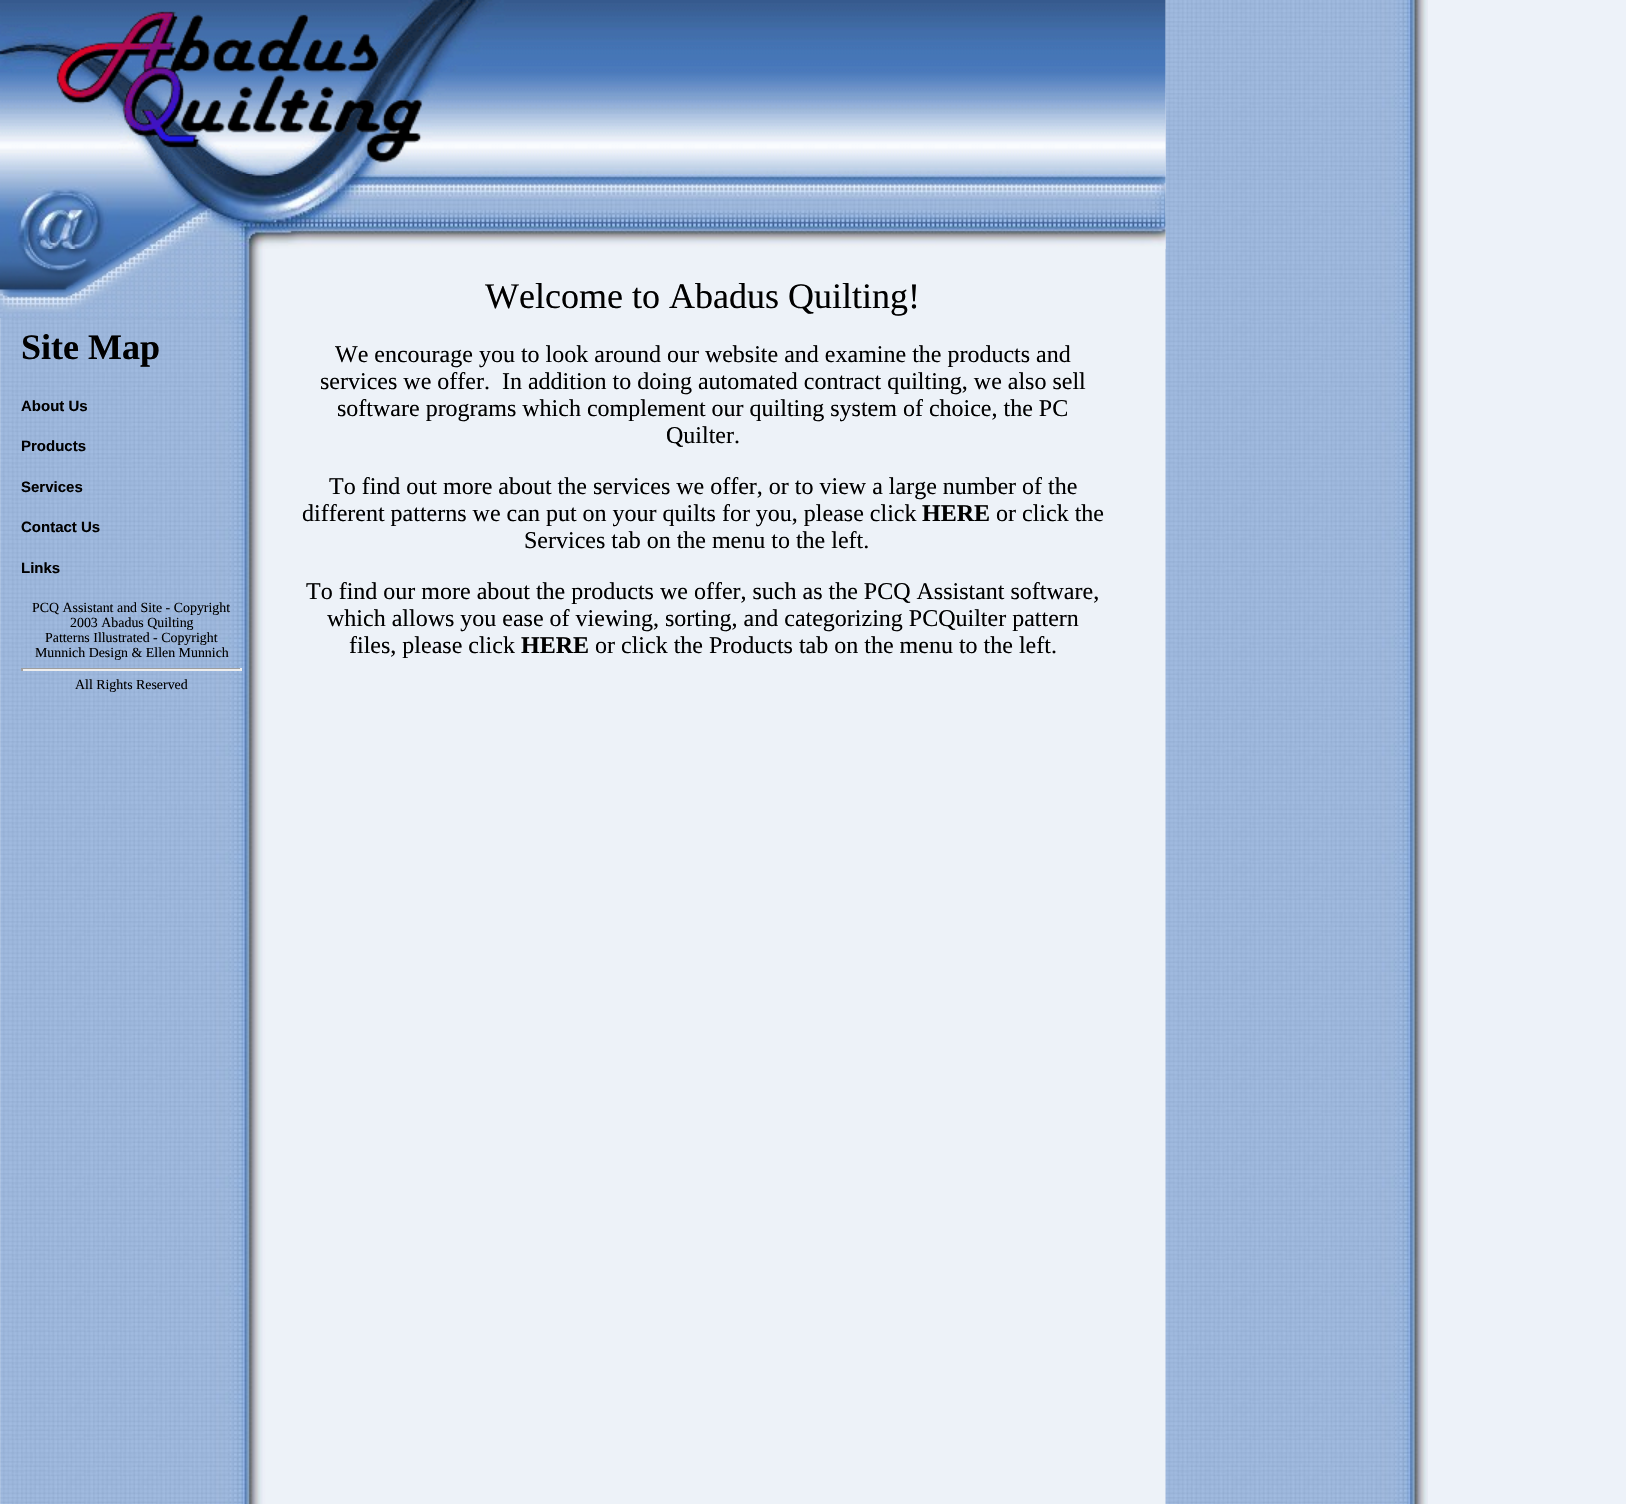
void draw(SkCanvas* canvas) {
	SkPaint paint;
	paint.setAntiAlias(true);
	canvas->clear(0xffedf2f9);
	canvas->drawImageRect(SkImages::DeferredFromEncodedData(SkData::MakeFromFileName("img1.png")), SkRect::MakeXYWH(0, 0, 1428, 1504), SkSamplingOptions());
	canvas->drawImageRect(SkImages::DeferredFromEncodedData(SkData::MakeFromFileName("img2.png")), SkRect::MakeXYWH(0, 0, 1166, 174), SkSamplingOptions());
	canvas->drawImageRect(SkImages::DeferredFromEncodedData(SkData::MakeFromFileName("img3.png")), SkRect::MakeXYWH(0, 174, 1166, 75), SkSamplingOptions());
	canvas->drawImageRect(SkImages::DeferredFromEncodedData(SkData::MakeFromFileName("img4.png")), SkRect::MakeXYWH(0, 249, 260, 69), SkSamplingOptions());
	SkFont f1(fontMgr->matchFamilyStyle("Liberation Serif", SkFontStyle::Bold()), 36);
	f1.setSubpixel(true);
	paint.setColor(0xff000000);
	canvas->drawString("Site Map", 21, 359, f1, paint);
	SkFont f2(fontMgr->matchFamilyStyle("Liberation Sans", SkFontStyle::Bold()), 15);
	f2.setSubpixel(true);
	canvas->drawString("About Us", 21, 411, f2, paint);
	canvas->drawString("Products", 21, 451, f2, paint);
	canvas->drawString("Services", 21, 492, f2, paint);
	canvas->drawString("Contact Us", 21, 532, f2, paint);
	canvas->drawString("Links", 21, 573, f2, paint);
	SkFont f3(fontMgr->matchFamilyStyle("Liberation Serif", SkFontStyle::Normal()), 13.9);
	f3.setSubpixel(true);
	canvas->drawString("PCQ Assistant and Site - Copyright", 32, 612, f3, paint);
	canvas->drawString("2003 Abadus Quilting", 70, 627, f3, paint);
	canvas->drawString("Patterns Illustrated - Copyright", 45, 642, f3, paint);
	canvas->drawString("Munnich Design & Ellen Munnich", 35, 657, f3, paint);
	paint.setColor(0xff9f9f9f);
	canvas->drawRect(SkRect::MakeXYWH(21, 668, 221, 1), paint);
	paint.setColor(0xffeeeeee);
	canvas->drawRect(SkRect::MakeXYWH(240, 668, 2, 3), paint);
	canvas->drawRect(SkRect::MakeXYWH(21, 669, 221, 2), paint);
	paint.setColor(0xff9f9f9f);
	canvas->drawRect(SkRect::MakeXYWH(21, 668, 2, 3), paint);
	paint.setColor(0xff000000);
	canvas->drawString("All Rights Reserved", 75, 689, f3, paint);
	SkFont f4(fontMgr->matchFamilyStyle("Liberation Serif", SkFontStyle::Normal()), 36);
	f4.setSubpixel(true);
	canvas->drawString("Welcome to Abadus Quilting!", 485, 308, f4, paint);
	SkFont f5(fontMgr->matchFamilyStyle("Liberation Serif", SkFontStyle::Normal()), 24);
	f5.setSubpixel(true);
	canvas->drawString("We encourage you to look around our website and examine the products and", 335, 362, f5, paint);
	canvas->drawString("services we offer.  In addition to doing automated contract quilting, we also sell", 320, 389, f5, paint);
	canvas->drawString("software programs which complement our quilting system of choice, the PC", 337, 416, f5, paint);
	canvas->drawString("Quilter.", 666, 443, f5, paint);
	canvas->drawString("To find out more about the services we offer, or to view a large number of the", 329, 494, f5, paint);
	canvas->drawString("different patterns we can put on your quilts for you, please click", 302, 521, f5, paint);
	SkFont f6(fontMgr->matchFamilyStyle("Liberation Serif", SkFontStyle::Bold()), 24);
	f6.setSubpixel(true);
	canvas->drawString("HERE", 922, 521, f6, paint);
	canvas->drawString("or click the", 996, 521, f5, paint);
	canvas->drawString("Services tab on the menu to the left.", 524, 548, f5, paint);
	canvas->drawString("To find our more about the products we offer, such as the PCQ Assistant software,", 306, 599, f5, paint);
	canvas->drawString("which allows you ease of viewing, sorting, and categorizing PCQuilter pattern", 327, 626, f5, paint);
	canvas->drawString("files, please click", 349, 653, f5, paint);
	canvas->drawString("HERE", 521, 653, f6, paint);
	canvas->drawString("or click the Products tab on the menu to the left.", 595, 653, f5, paint);
}
